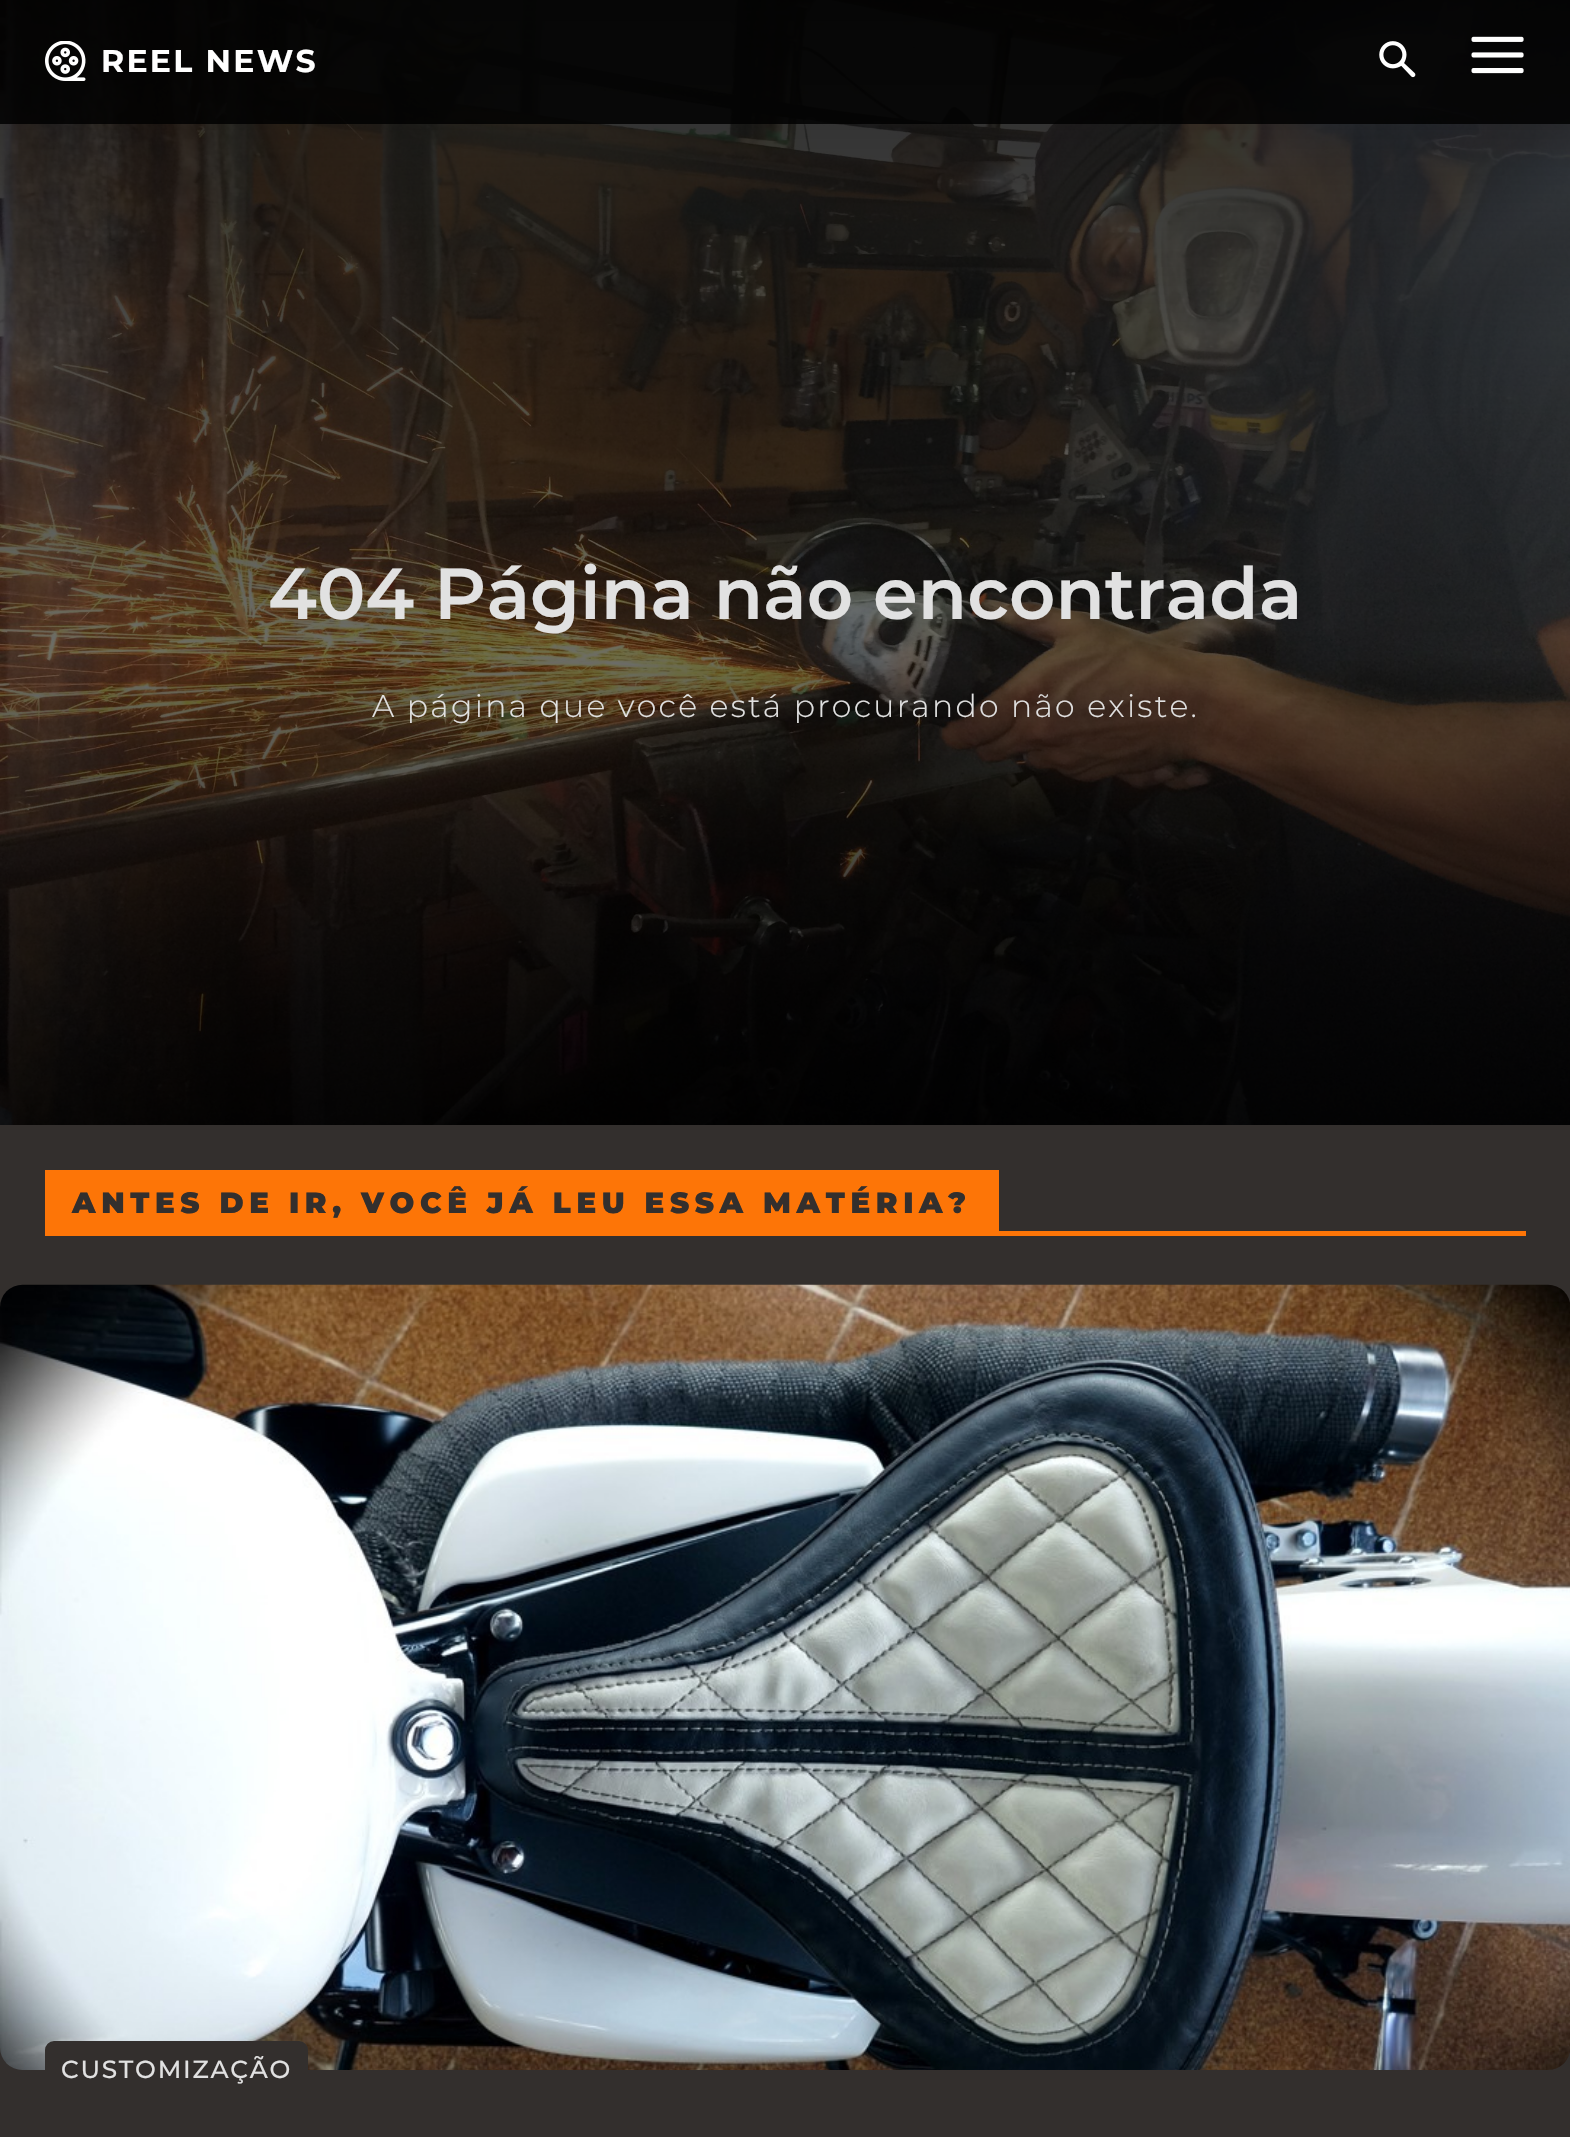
void draw(SkCanvas* canvas) {
	SkPaint paint;
	paint.setAntiAlias(true);
	auto spacedText = [&](const char* s, float x, float y, const SkFont& font, const SkPaint& ink, float letter, float word) {
		std::vector<SkGlyphID> glyphs(font.countText(s, strlen(s), SkTextEncoding::kUTF8));
		std::vector<float> xs(glyphs.size());
		font.textToGlyphs(s, strlen(s), SkTextEncoding::kUTF8, glyphs);
		font.getXPos(glyphs, xs, x);
		float extra = 0;
		for (size_t i = 0; i < glyphs.size(); i++) {
			xs[i] += extra;
			extra += letter + word * (glyphs[i] == font.unicharToGlyph(' '));
		}
		canvas->drawTextBlob(SkTextBlob::MakeFromPosHGlyphs(glyphs, xs, y, font), 0, 0, ink);
	};
	canvas->clear(0xffffffff);
	canvas->drawImageRect(SkImages::DeferredFromEncodedData(SkData::MakeFromFileName("img4.png")), SkRect::MakeXYWH(0, 0, 1570, 1125), SkSamplingOptions());
	paint.setColor(0xd9000000);
	canvas->drawRect(SkRect::MakeXYWH(0, 0, 1570, 124), paint);
	canvas->drawImageRect(SkImages::DeferredFromEncodedData(SkData::MakeFromFileName("img1.png")), SkRect::MakeXYWH(45, 41, 41, 40), SkSamplingOptions());
	SkFont f1(fontMgr->matchFamilyStyle("Montserrat", SkFontStyle::Bold()), 31.5);
	f1.setSubpixel(true);
	paint.setColor(0xffffffff);
	spacedText("REEL NEWS", 101, 72, f1, paint, 2.25, 0);
	canvas->drawImageRect(SkImages::DeferredFromEncodedData(SkData::MakeFromFileName("img2.png")), SkRect::MakeXYWH(1379, 41, 37, 37), SkSamplingOptions());
	canvas->drawImageRect(SkImages::DeferredFromEncodedData(SkData::MakeFromFileName("img3.png")), SkRect::MakeXYWH(1471, 36, 53, 38), SkSamplingOptions());
	SkFont f2(fontMgr->matchFamilyStyle("Montserrat", SkFontStyle(600, SkFontStyle::kNormal_Width, SkFontStyle::kUpright_Slant)), 72);
	f2.setSubpixel(true);
	paint.setColor(0xffe1e1e1);
	canvas->drawString("404 Página não encontrada", 268, 619, f2, paint);
	SkFont f3(fontMgr->matchFamilyStyle("Montserrat", SkFontStyle(300, SkFontStyle::kNormal_Width, SkFontStyle::kUpright_Slant)), 31.5);
	f3.setSubpixel(true);
	spacedText("A página que você está procurando não existe.", 372, 717, f3, paint, 2.25, 0);
	paint.setColor(0xff332f2d);
	canvas->drawRect(SkRect::MakeXYWH(0, 1125, 1570, 1012), paint);
	paint.setColor(0xfffd7507);
	canvas->drawRect(SkRect::MakeXYWH(45, 1231, 1481, 5), paint);
	canvas->drawRect(SkRect::MakeXYWH(45, 1170, 954, 61), paint);
	SkFont f4(fontMgr->matchFamilyStyle("Montserrat", SkFontStyle(900, SkFontStyle::kNormal_Width, SkFontStyle::kUpright_Slant)), 29.25);
	f4.setSubpixel(true);
	paint.setColor(0xff332f2d);
	spacedText("ANTES DE IR, VOCÊ JÁ LEU ESSA MATÉRIA?", 72, 1213, f4, paint, 5.6, 0);
	canvas->drawImageRect(SkImages::DeferredFromEncodedData(SkData::MakeFromFileName("img5.png")), SkRect::MakeXYWH(0, 1284, 1570, 786), SkSamplingOptions());
	canvas->drawRoundRect(SkRect::MakeXYWH(46, 2042, 261, 52), 8, 8, paint);
	paint.setStroke(true);
	paint.setStrokeWidth(2);
	canvas->drawRoundRect(SkRect::MakeXYWH(46, 2042, 261, 52), 8, 8, paint);
	SkFont f5(fontMgr->matchFamilyStyle("Montserrat", SkFontStyle(500, SkFontStyle::kNormal_Width, SkFontStyle::kUpright_Slant)), 24.75);
	f5.setSubpixel(true);
	paint.setStroke(false);
	paint.setColor(0xffe1e1e1);
	spacedText("CUSTOMIZAÇÃO", 61, 2078, f5, paint, 1.75, 0);
}
